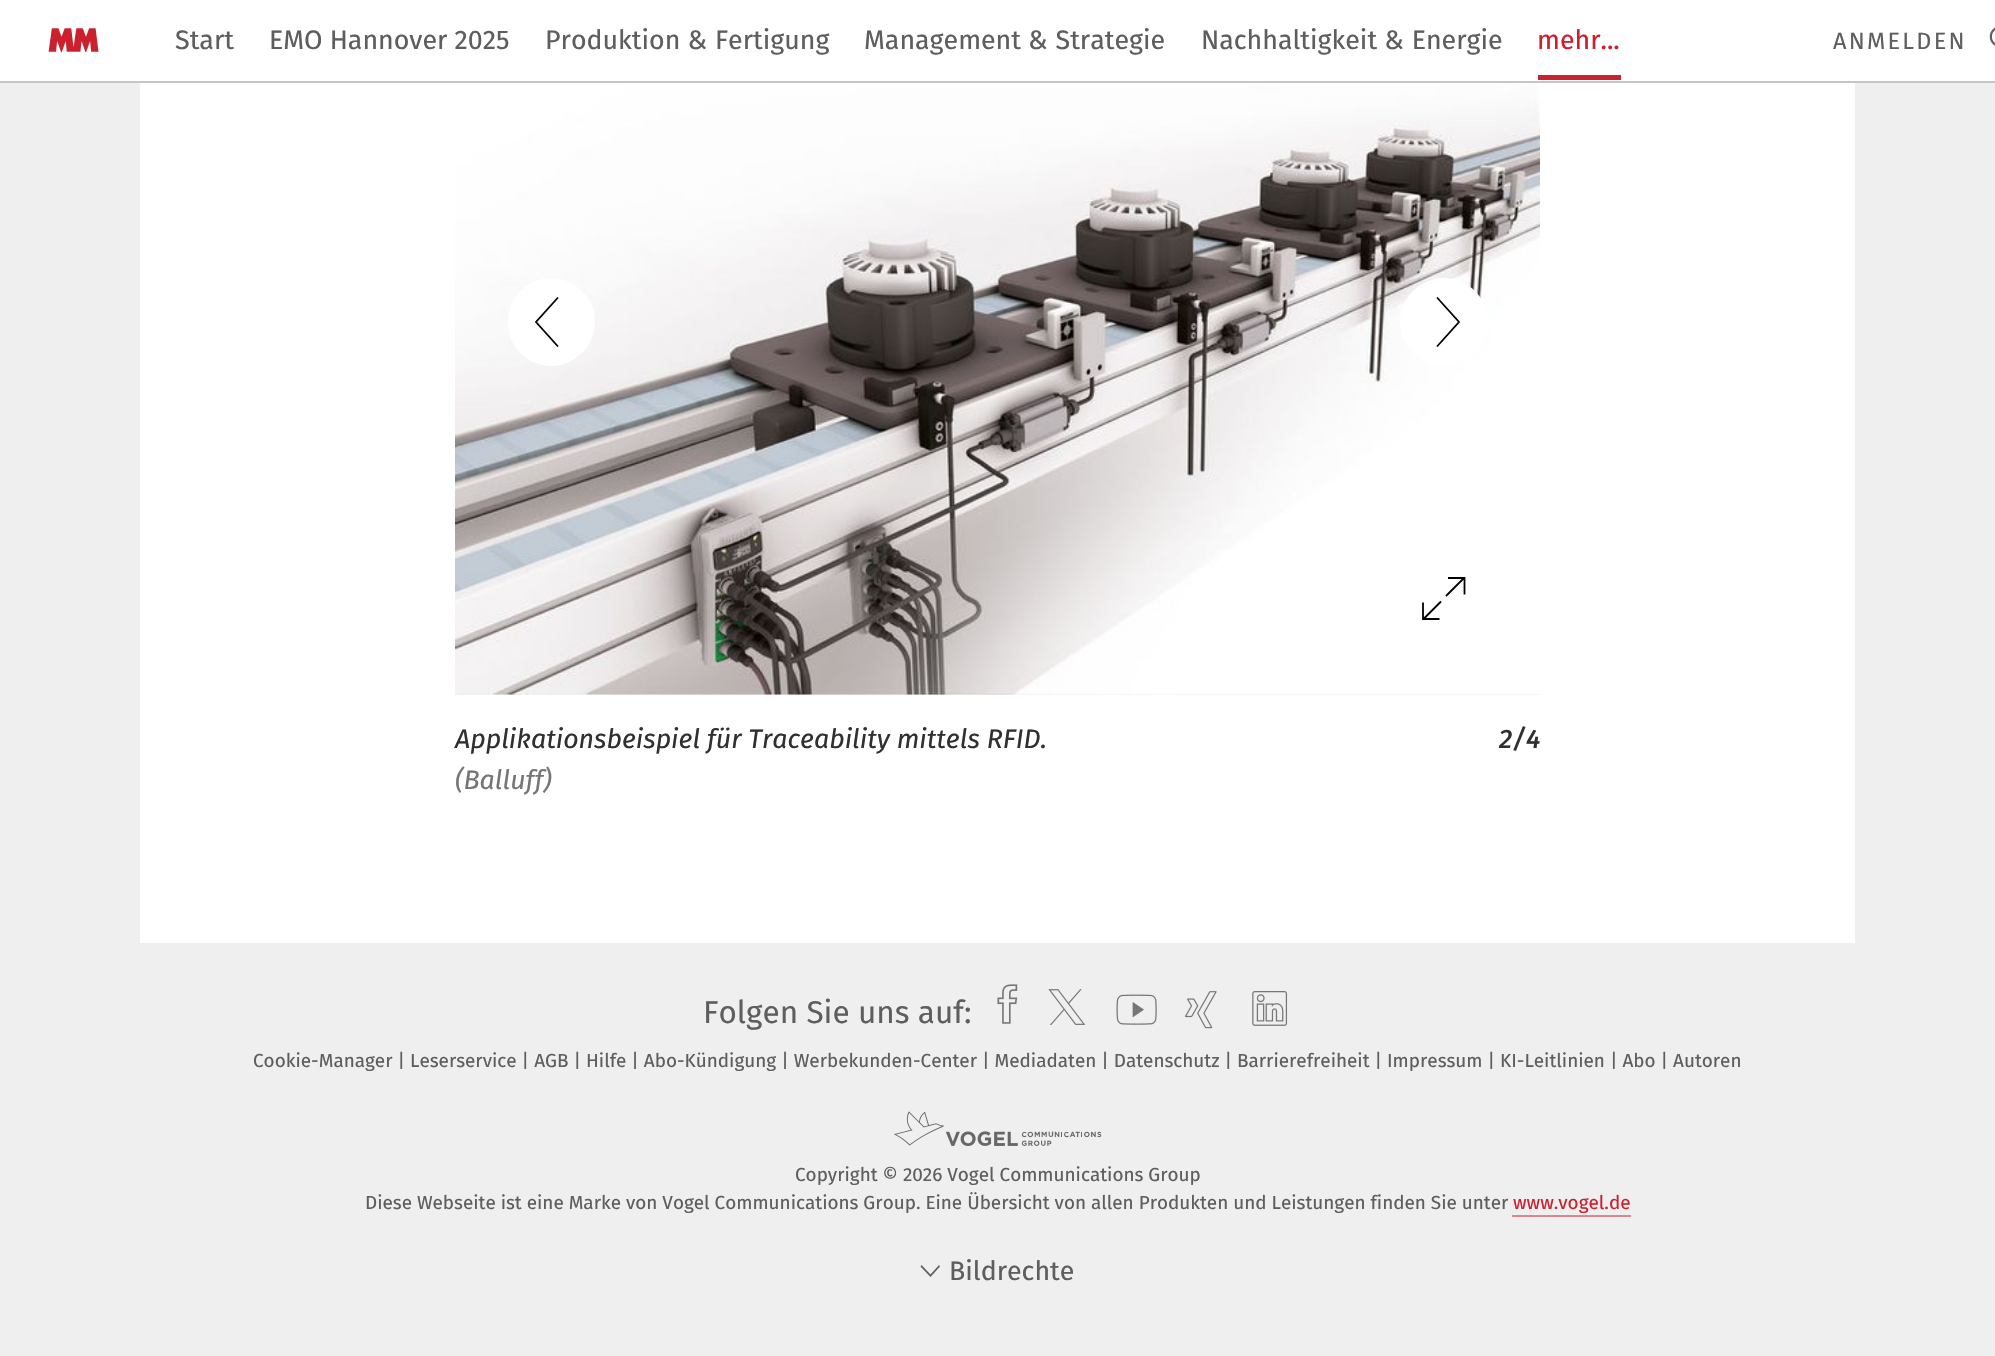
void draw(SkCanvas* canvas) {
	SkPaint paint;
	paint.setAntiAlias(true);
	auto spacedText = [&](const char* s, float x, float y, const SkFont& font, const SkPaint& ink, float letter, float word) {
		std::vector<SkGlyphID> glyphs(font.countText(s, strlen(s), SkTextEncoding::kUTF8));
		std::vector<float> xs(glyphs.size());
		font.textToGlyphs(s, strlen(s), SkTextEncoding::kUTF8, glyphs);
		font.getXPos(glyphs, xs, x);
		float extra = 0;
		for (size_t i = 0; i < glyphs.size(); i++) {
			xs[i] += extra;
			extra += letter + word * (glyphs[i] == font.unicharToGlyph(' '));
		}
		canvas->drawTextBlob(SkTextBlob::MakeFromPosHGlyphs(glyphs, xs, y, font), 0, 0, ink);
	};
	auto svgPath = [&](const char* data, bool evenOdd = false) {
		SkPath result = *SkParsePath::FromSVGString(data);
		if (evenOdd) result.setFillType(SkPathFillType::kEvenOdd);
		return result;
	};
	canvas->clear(0xffefefef);
	paint.setColor(0xffffffff);
	canvas->drawRect(SkRect::MakeXYWH(140, 83, 1715, 860), paint);
	canvas->drawRect(SkRect::MakeXYWH(0, 0, 1995, 81), paint);
	paint.setColor(0xffc6c6c6);
	canvas->drawRect(SkRect::MakeXYWH(0, 81, 1995, 2), paint);
	canvas->drawImageRect(SkImages::DeferredFromEncodedData(SkData::MakeFromFileName("img1.png")), SkRect::MakeXYWH(48, 28, 51, 25), SkSamplingOptions());
	SkFont f1(fontMgr->matchFamilyStyle("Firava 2", SkFontStyle::Normal()), 26.75);
	f1.setSubpixel(true);
	paint.setColor(0xff5e5e5e);
	canvas->drawString("Start", 175, 49, f1, paint);
	canvas->drawString("EMO Hannover 2025", 269, 49, f1, paint);
	canvas->drawString("Produktion & Fertigung", 545, 49, f1, paint);
	canvas->drawString("Management & Strategie", 864, 49, f1, paint);
	canvas->drawString("Nachhaltigkeit & Energie", 1201, 49, f1, paint);
	paint.setColor(0xffcb212f);
	canvas->drawRect(SkRect::MakeXYWH(1538, 75, 83, 5), paint);
	canvas->drawString("mehr...", 1537, 49, f1, paint);
	SkFont f2(fontMgr->matchFamilyStyle("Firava", SkFontStyle::Normal()), 23.5);
	f2.setSubpixel(true);
	paint.setColor(0xff5e5e5e);
	spacedText("ANMELDEN", 1833, 49, f2, paint, 2.25, 0);
	canvas->drawImageRect(SkImages::DeferredFromEncodedData(SkData::MakeFromFileName("img2.png")), SkRect::MakeXYWH(1989, 27, 6, 19), SkSamplingOptions());
	paint.setColor(0xffefefef);
	canvas->drawRect(SkRect::MakeXYWH(455, 694, 1085, 1), paint);
	canvas->drawImageRect(SkImages::DeferredFromEncodedData(SkData::MakeFromFileName("img3.png")), SkRect::MakeXYWH(455, 83, 1085, 612), SkSamplingOptions());
	paint.setColor(0xffffffff);
	canvas->drawPath(svgPath("M551 366C575 366 595 346 595 322C595 298 575 278 551 278C527 278 508 298 508 322C508 346 527 366 551 366"), paint);
	paint.setStroke(true);
	paint.setStrokeWidth(1.8);
	paint.setColor(0xff000000);
	canvas->drawPath(svgPath("M558 297.5L536 322L558 346.5"), paint);
	paint.setStroke(false);
	paint.setColor(0xffffffff);
	canvas->drawPath(svgPath("M1444 278C1420 278 1400 298 1400 322C1400 346 1420 366 1444 366C1468 366 1488 346 1488 322C1488 298 1468 278 1444 278"), paint);
	paint.setStroke(true);
	paint.setColor(0xff000000);
	canvas->drawPath(svgPath("M1437 346.5L1459 322L1437 297.5"), paint);
	canvas->drawPath(svgPath("M1464.5 594.5V578H1448M1423 602.5V619H1439.5M1463.5 578.5L1446 596M1441 601.5L1423.5 619"), paint);
	SkFont f3(fontMgr->matchFamilyStyle("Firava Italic", SkFontStyle::Italic()), 26.75);
	f3.setSubpixel(true);
	paint.setStroke(false);
	paint.setColor(0xff303030);
	canvas->drawString("Applikationsbeispiel für Traceability mittels RFID.", 455, 748, f3, paint);
	paint.setColor(0xff767676);
	canvas->drawString("(Balluff)", 455, 789, f3, paint);
	SkFont f4(fontMgr->matchFamilyStyle("Firava Italic", SkFontStyle(500, SkFontStyle::kNormal_Width, SkFontStyle::kItalic_Slant)), 26.75);
	f4.setSubpixel(true);
	paint.setColor(0xff303030);
	canvas->drawString("2/4", 1499, 748, f4, paint);
	SkFont f5(fontMgr->matchFamilyStyle("Firava", SkFontStyle::Normal()), 31.5);
	f5.setSubpixel(true);
	paint.setColor(0xff5e5e5e);
	canvas->drawString("Folgen Sie uns auf:", 703, 1023, f5, paint);
	canvas->drawImageRect(SkImages::DeferredFromEncodedData(SkData::MakeFromFileName("img4.png")), SkRect::MakeXYWH(997, 984, 21, 40), SkSamplingOptions());
	canvas->drawImageRect(SkImages::DeferredFromEncodedData(SkData::MakeFromFileName("img5.png")), SkRect::MakeXYWH(1048, 989, 38, 36), SkSamplingOptions());
	canvas->drawImageRect(SkImages::DeferredFromEncodedData(SkData::MakeFromFileName("img6.png")), SkRect::MakeXYWH(1116, 994, 41, 31), SkSamplingOptions());
	canvas->drawImageRect(SkImages::DeferredFromEncodedData(SkData::MakeFromFileName("img7.png")), SkRect::MakeXYWH(1185, 991, 32, 38), SkSamplingOptions());
	canvas->drawImageRect(SkImages::DeferredFromEncodedData(SkData::MakeFromFileName("img8.png")), SkRect::MakeXYWH(1252, 991, 36, 35), SkSamplingOptions());
	SkFont f6(fontMgr->matchFamilyStyle("Firava 2", SkFontStyle::Normal()), 18.9);
	f6.setSubpixel(true);
	canvas->drawString("Cookie-Manager | Leserservice | AGB | Hilfe | Abo-Kündigung | Werbekunden-Center | Mediadaten | Datenschutz | Barrierefreiheit | Impressum | KI-Leitlinien | Abo | Autoren", 253, 1067, f6, paint);
	canvas->drawImageRect(SkImages::DeferredFromEncodedData(SkData::MakeFromFileName("img9.png")), SkRect::MakeXYWH(894, 1111, 208, 35), SkSamplingOptions());
	canvas->drawString("Copyright © 2026 Vogel Communications Group", 795, 1181, f6, paint);
	canvas->drawString("Diese Webseite ist eine Marke von Vogel Communications Group. Eine Übersicht von allen Produkten und Leistungen finden Sie unter", 365, 1209, f6, paint);
	paint.setColor(0xffcb212f);
	canvas->drawString("www.vogel.de", 1513, 1209, f6, paint);
	paint.setColor(0xffdd888f);
	canvas->drawRect(SkRect::MakeXYWH(1512, 1215, 119, 2), paint);
	paint.setColor(0xff5e5e5e);
	canvas->drawPath(svgPath("M939 1265L940 1266.5L930.5 1277L920.5 1266.5L921.5 1265L930.5 1274.5Z"), paint);
	canvas->drawString("Bildrechte", 949, 1280, f1, paint);
}
